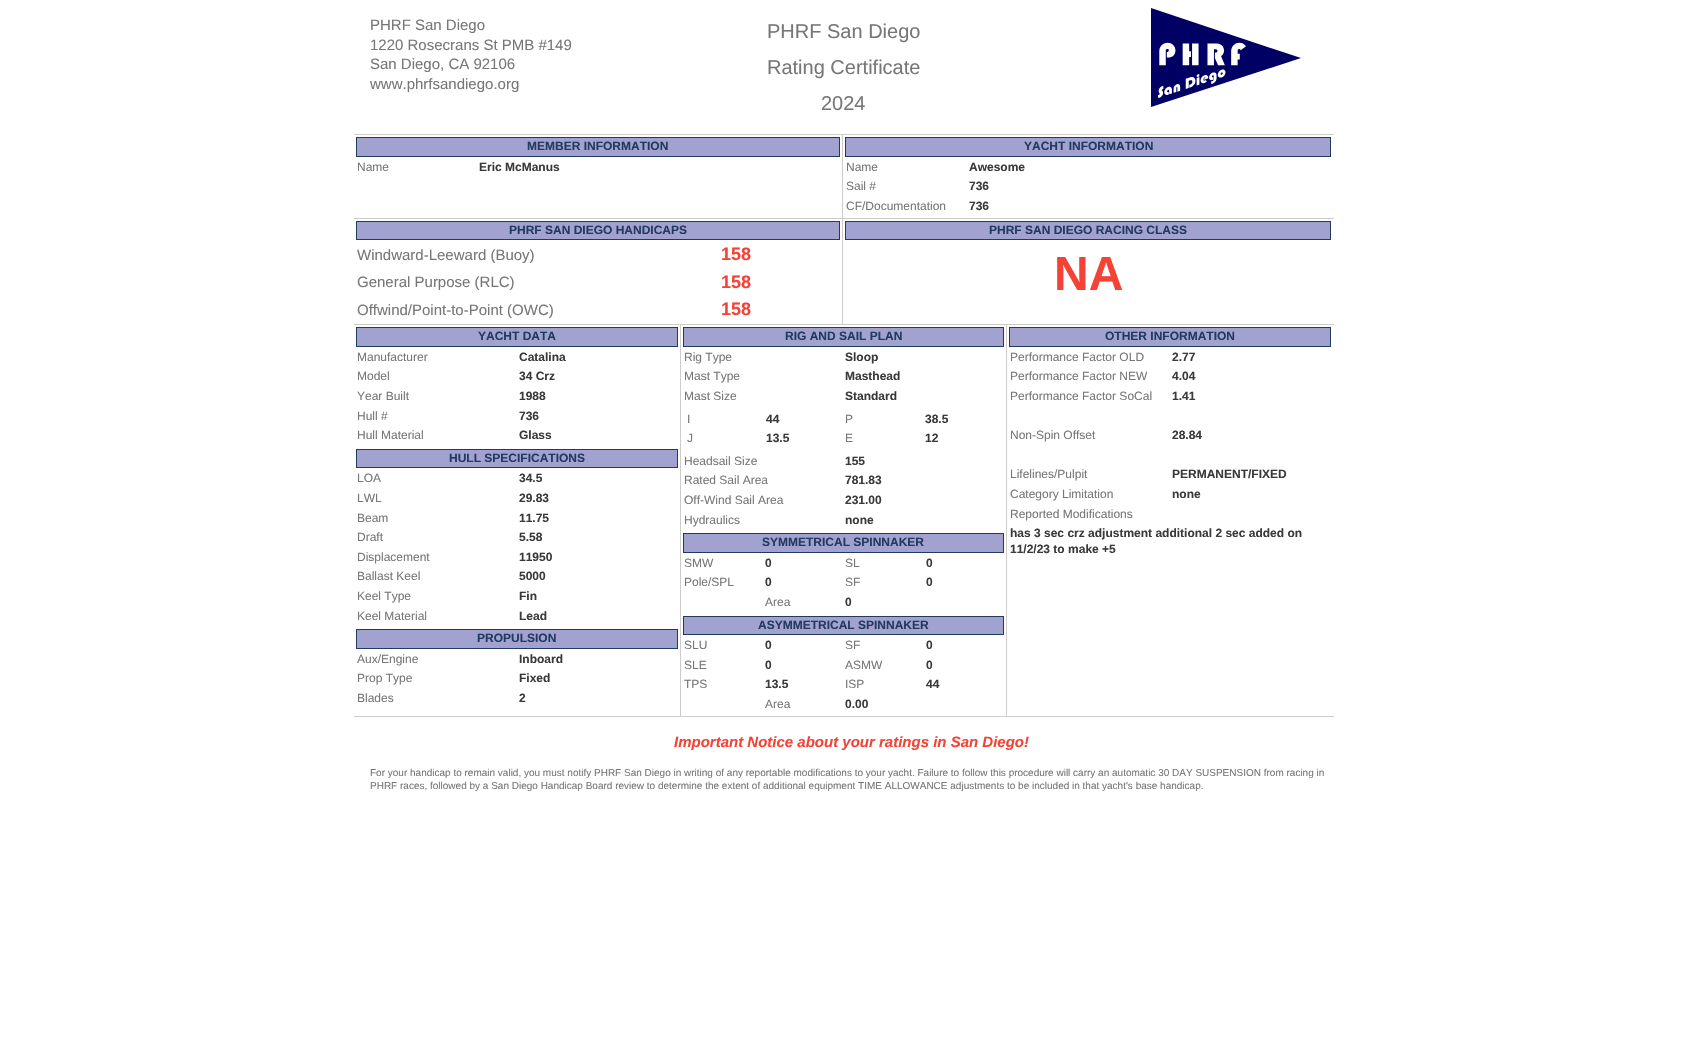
void draw(SkCanvas* canvas) {
	SkPaint paint;
	paint.setAntiAlias(true);
	canvas->clear(0xffffffff);
	paint.setColor(0xffcccccc);
	canvas->drawRect(SkRect::MakeXYWH(354, 134, 980, 1), paint);
	SkFont f1(fontMgr->matchFamilyStyle("Liberation Sans", SkFontStyle::Normal()), 15);
	f1.setSubpixel(true);
	paint.setColor(0xff777777);
	canvas->drawString("PHRF San Diego", 370, 30, f1, paint);
	canvas->drawString("1220 Rosecrans St PMB #149", 370, 50, f1, paint);
	canvas->drawString("San Diego, CA 92106", 370, 69, f1, paint);
	canvas->drawString("www.phrfsandiego.org", 370, 89, f1, paint);
	SkFont f2(fontMgr->matchFamilyStyle("Liberation Sans", SkFontStyle::Normal()), 20);
	f2.setSubpixel(true);
	canvas->drawString("PHRF San Diego", 767, 38, f2, paint);
	canvas->drawString("Rating Certificate", 767, 74, f2, paint);
	canvas->drawString("2024", 821, 110, f2, paint);
	canvas->drawImageRect(SkImages::DeferredFromEncodedData(SkData::MakeFromFileName("img1.png")), SkRect::MakeXYWH(1151, 8, 150, 99), SkSamplingOptions());
	paint.setColor(0xffcccccc);
	canvas->drawRect(SkRect::MakeXYWH(354, 218, 980, 1), paint);
	canvas->drawRect(SkRect::MakeXYWH(842, 135, 1, 83), paint);
	paint.setColor(0xffa2a2d0);
	canvas->drawRect(SkRect::MakeXYWH(356.5, 137.5, 483, 19), paint);
	paint.setStroke(true);
	paint.setStrokeWidth(1);
	paint.setColor(0xff223a5e);
	canvas->drawRect(SkRect::MakeXYWH(356.5, 137.5, 483, 19), paint);
	SkFont f3(fontMgr->matchFamilyStyle("Liberation Sans", SkFontStyle::Bold()), 12);
	f3.setSubpixel(true);
	paint.setStroke(false);
	canvas->drawString("MEMBER INFORMATION", 527, 150, f3, paint);
	SkFont f4(fontMgr->matchFamilyStyle("Liberation Sans", SkFontStyle::Normal()), 12);
	f4.setSubpixel(true);
	paint.setColor(0xff777777);
	canvas->drawString("Name", 357, 171, f4, paint);
	paint.setColor(0xff3a3a3a);
	canvas->drawString("Eric McManus", 479, 171, f3, paint);
	paint.setColor(0xffa2a2d0);
	canvas->drawRect(SkRect::MakeXYWH(845.5, 137.5, 485, 19), paint);
	paint.setStroke(true);
	paint.setColor(0xff223a5e);
	canvas->drawRect(SkRect::MakeXYWH(845.5, 137.5, 485, 19), paint);
	paint.setStroke(false);
	canvas->drawString("YACHT INFORMATION", 1024, 150, f3, paint);
	paint.setColor(0xff777777);
	canvas->drawString("Name", 846, 171, f4, paint);
	paint.setColor(0xff3a3a3a);
	canvas->drawString("Awesome", 969, 171, f3, paint);
	paint.setColor(0xff777777);
	canvas->drawString("Sail #", 846, 190, f4, paint);
	paint.setColor(0xff3a3a3a);
	canvas->drawString("736", 969, 190, f3, paint);
	paint.setColor(0xff777777);
	canvas->drawString("CF/Documentation", 846, 210, f4, paint);
	paint.setColor(0xff3a3a3a);
	canvas->drawString("736", 969, 210, f3, paint);
	paint.setColor(0xffcccccc);
	canvas->drawRect(SkRect::MakeXYWH(354, 324, 980, 1), paint);
	canvas->drawRect(SkRect::MakeXYWH(842, 219, 1, 105), paint);
	paint.setColor(0xffa2a2d0);
	canvas->drawRect(SkRect::MakeXYWH(356.5, 221.5, 483, 18), paint);
	paint.setStroke(true);
	paint.setColor(0xff223a5e);
	canvas->drawRect(SkRect::MakeXYWH(356.5, 221.5, 483, 18), paint);
	paint.setStroke(false);
	canvas->drawString("PHRF SAN DIEGO HANDICAPS", 509, 234, f3, paint);
	paint.setColor(0xff777777);
	canvas->drawString("Windward-Leeward (Buoy)", 357, 260, f1, paint);
	SkFont f5(fontMgr->matchFamilyStyle("Liberation Sans", SkFontStyle::Bold()), 18);
	f5.setSubpixel(true);
	paint.setColor(0xfff44336);
	canvas->drawString("158", 721, 260, f5, paint);
	paint.setColor(0xff777777);
	canvas->drawString("General Purpose (RLC)", 357, 287, f1, paint);
	paint.setColor(0xfff44336);
	canvas->drawString("158", 721, 288, f5, paint);
	paint.setColor(0xff777777);
	canvas->drawString("Offwind/Point-to-Point (OWC)", 357, 315, f1, paint);
	paint.setColor(0xfff44336);
	canvas->drawString("158", 721, 315, f5, paint);
	paint.setColor(0xffa2a2d0);
	canvas->drawRect(SkRect::MakeXYWH(845.5, 221.5, 485, 18), paint);
	paint.setStroke(true);
	paint.setColor(0xff223a5e);
	canvas->drawRect(SkRect::MakeXYWH(845.5, 221.5, 485, 18), paint);
	paint.setStroke(false);
	canvas->drawString("PHRF SAN DIEGO RACING CLASS", 989, 234, f3, paint);
	SkFont f6(fontMgr->matchFamilyStyle("Liberation Sans", SkFontStyle::Bold()), 48);
	f6.setSubpixel(true);
	paint.setColor(0xfff44336);
	canvas->drawString("NA", 1054, 290, f6, paint);
	paint.setColor(0xffcccccc);
	canvas->drawRect(SkRect::MakeXYWH(354, 716, 980, 1), paint);
	paint.setColor(0xffa2a2d0);
	canvas->drawRect(SkRect::MakeXYWH(356.5, 327.5, 321, 19), paint);
	paint.setStroke(true);
	paint.setColor(0xff223a5e);
	canvas->drawRect(SkRect::MakeXYWH(356.5, 327.5, 321, 19), paint);
	paint.setStroke(false);
	canvas->drawString("YACHT DATA", 478, 340, f3, paint);
	paint.setColor(0xff777777);
	canvas->drawString("Manufacturer", 357, 361, f4, paint);
	paint.setColor(0xff3a3a3a);
	canvas->drawString("Catalina", 519, 361, f3, paint);
	paint.setColor(0xff777777);
	canvas->drawString("Model", 357, 380, f4, paint);
	paint.setColor(0xff3a3a3a);
	canvas->drawString("34 Crz", 519, 380, f3, paint);
	paint.setColor(0xff777777);
	canvas->drawString("Year Built", 357, 400, f4, paint);
	paint.setColor(0xff3a3a3a);
	canvas->drawString("1988", 519, 400, f3, paint);
	paint.setColor(0xff777777);
	canvas->drawString("Hull #", 357, 420, f4, paint);
	paint.setColor(0xff3a3a3a);
	canvas->drawString("736", 519, 420, f3, paint);
	paint.setColor(0xff777777);
	canvas->drawString("Hull Material", 357, 439, f4, paint);
	paint.setColor(0xff3a3a3a);
	canvas->drawString("Glass", 519, 439, f3, paint);
	paint.setColor(0xffa2a2d0);
	canvas->drawRect(SkRect::MakeXYWH(356.5, 449.5, 321, 18), paint);
	paint.setStroke(true);
	paint.setColor(0xff223a5e);
	canvas->drawRect(SkRect::MakeXYWH(356.5, 449.5, 321, 18), paint);
	paint.setStroke(false);
	canvas->drawString("HULL SPECIFICATIONS", 449, 462, f3, paint);
	paint.setColor(0xff777777);
	canvas->drawString("LOA", 357, 482, f4, paint);
	paint.setColor(0xff3a3a3a);
	canvas->drawString("34.5", 519, 482, f3, paint);
	paint.setColor(0xff777777);
	canvas->drawString("LWL", 357, 502, f4, paint);
	paint.setColor(0xff3a3a3a);
	canvas->drawString("29.83", 519, 502, f3, paint);
	paint.setColor(0xff777777);
	canvas->drawString("Beam", 357, 522, f4, paint);
	paint.setColor(0xff3a3a3a);
	canvas->drawString("11.75", 519, 522, f3, paint);
	paint.setColor(0xff777777);
	canvas->drawString("Draft", 357, 541, f4, paint);
	paint.setColor(0xff3a3a3a);
	canvas->drawString("5.58", 519, 541, f3, paint);
	paint.setColor(0xff777777);
	canvas->drawString("Displacement", 357, 561, f4, paint);
	paint.setColor(0xff3a3a3a);
	canvas->drawString("11950", 519, 561, f3, paint);
	paint.setColor(0xff777777);
	canvas->drawString("Ballast Keel", 357, 580, f4, paint);
	paint.setColor(0xff3a3a3a);
	canvas->drawString("5000", 519, 580, f3, paint);
	paint.setColor(0xff777777);
	canvas->drawString("Keel Type", 357, 600, f4, paint);
	paint.setColor(0xff3a3a3a);
	canvas->drawString("Fin", 519, 600, f3, paint);
	paint.setColor(0xff777777);
	canvas->drawString("Keel Material", 357, 620, f4, paint);
	paint.setColor(0xff3a3a3a);
	canvas->drawString("Lead", 519, 620, f3, paint);
	paint.setColor(0xffa2a2d0);
	canvas->drawRect(SkRect::MakeXYWH(356.5, 629.5, 321, 19), paint);
	paint.setStroke(true);
	paint.setColor(0xff223a5e);
	canvas->drawRect(SkRect::MakeXYWH(356.5, 629.5, 321, 19), paint);
	paint.setStroke(false);
	canvas->drawString("PROPULSION", 477, 642, f3, paint);
	paint.setColor(0xff777777);
	canvas->drawString("Aux/Engine", 357, 663, f4, paint);
	paint.setColor(0xff3a3a3a);
	canvas->drawString("Inboard", 519, 663, f3, paint);
	paint.setColor(0xff777777);
	canvas->drawString("Prop Type", 357, 682, f4, paint);
	paint.setColor(0xff3a3a3a);
	canvas->drawString("Fixed", 519, 682, f3, paint);
	paint.setColor(0xff777777);
	canvas->drawString("Blades", 357, 702, f4, paint);
	paint.setColor(0xff3a3a3a);
	canvas->drawString("2", 519, 702, f3, paint);
	paint.setColor(0xffcccccc);
	canvas->drawRect(SkRect::MakeXYWH(1006, 325, 1, 391), paint);
	canvas->drawRect(SkRect::MakeXYWH(680, 325, 1, 391), paint);
	paint.setColor(0xffa2a2d0);
	canvas->drawRect(SkRect::MakeXYWH(683.5, 327.5, 320, 19), paint);
	paint.setStroke(true);
	paint.setColor(0xff223a5e);
	canvas->drawRect(SkRect::MakeXYWH(683.5, 327.5, 320, 19), paint);
	paint.setStroke(false);
	canvas->drawString("RIG AND SAIL PLAN", 785, 340, f3, paint);
	paint.setColor(0xff777777);
	canvas->drawString("Rig Type", 684, 361, f4, paint);
	paint.setColor(0xff3a3a3a);
	canvas->drawString("Sloop", 845, 361, f3, paint);
	paint.setColor(0xff777777);
	canvas->drawString("Mast Type", 684, 380, f4, paint);
	paint.setColor(0xff3a3a3a);
	canvas->drawString("Masthead", 845, 380, f3, paint);
	paint.setColor(0xff777777);
	canvas->drawString("Mast Size", 684, 400, f4, paint);
	paint.setColor(0xff3a3a3a);
	canvas->drawString("Standard", 845, 400, f3, paint);
	paint.setColor(0xff777777);
	canvas->drawString("I", 687, 423, f4, paint);
	paint.setColor(0xff3a3a3a);
	canvas->drawString("44", 766, 423, f3, paint);
	paint.setColor(0xff777777);
	canvas->drawString("P", 845, 423, f4, paint);
	paint.setColor(0xff3a3a3a);
	canvas->drawString("38.5", 925, 423, f3, paint);
	paint.setColor(0xff777777);
	canvas->drawString("J", 687, 442, f4, paint);
	paint.setColor(0xff3a3a3a);
	canvas->drawString("13.5", 766, 442, f3, paint);
	paint.setColor(0xff777777);
	canvas->drawString("E", 845, 442, f4, paint);
	paint.setColor(0xff3a3a3a);
	canvas->drawString("12", 925, 442, f3, paint);
	paint.setColor(0xff777777);
	canvas->drawString("Headsail Size", 684, 465, f4, paint);
	paint.setColor(0xff3a3a3a);
	canvas->drawString("155", 845, 465, f3, paint);
	paint.setColor(0xff777777);
	canvas->drawString("Rated Sail Area", 684, 484, f4, paint);
	paint.setColor(0xff3a3a3a);
	canvas->drawString("781.83", 845, 484, f3, paint);
	paint.setColor(0xff777777);
	canvas->drawString("Off-Wind Sail Area", 684, 504, f4, paint);
	paint.setColor(0xff3a3a3a);
	canvas->drawString("231.00", 845, 504, f3, paint);
	paint.setColor(0xff777777);
	canvas->drawString("Hydraulics", 684, 524, f4, paint);
	paint.setColor(0xff3a3a3a);
	canvas->drawString("none", 845, 524, f3, paint);
	paint.setColor(0xffa2a2d0);
	canvas->drawRect(SkRect::MakeXYWH(683.5, 533.5, 320, 19), paint);
	paint.setStroke(true);
	paint.setColor(0xff223a5e);
	canvas->drawRect(SkRect::MakeXYWH(683.5, 533.5, 320, 19), paint);
	paint.setStroke(false);
	canvas->drawString("SYMMETRICAL SPINNAKER", 762, 546, f3, paint);
	paint.setColor(0xff777777);
	canvas->drawString("SMW", 684, 567, f4, paint);
	paint.setColor(0xff3a3a3a);
	canvas->drawString("0", 765, 567, f3, paint);
	paint.setColor(0xff777777);
	canvas->drawString("SL", 845, 567, f4, paint);
	paint.setColor(0xff3a3a3a);
	canvas->drawString("0", 926, 567, f3, paint);
	paint.setColor(0xff777777);
	canvas->drawString("Pole/SPL", 684, 586, f4, paint);
	paint.setColor(0xff3a3a3a);
	canvas->drawString("0", 765, 586, f3, paint);
	paint.setColor(0xff777777);
	canvas->drawString("SF", 845, 586, f4, paint);
	paint.setColor(0xff3a3a3a);
	canvas->drawString("0", 926, 586, f3, paint);
	paint.setColor(0xff777777);
	canvas->drawString("Area", 765, 606, f4, paint);
	paint.setColor(0xff3a3a3a);
	canvas->drawString("0", 845, 606, f3, paint);
	paint.setColor(0xffa2a2d0);
	canvas->drawRect(SkRect::MakeXYWH(683.5, 616.5, 320, 18), paint);
	paint.setStroke(true);
	paint.setColor(0xff223a5e);
	canvas->drawRect(SkRect::MakeXYWH(683.5, 616.5, 320, 18), paint);
	paint.setStroke(false);
	canvas->drawString("ASYMMETRICAL SPINNAKER", 758, 629, f3, paint);
	paint.setColor(0xff777777);
	canvas->drawString("SLU", 684, 649, f4, paint);
	paint.setColor(0xff3a3a3a);
	canvas->drawString("0", 765, 649, f3, paint);
	paint.setColor(0xff777777);
	canvas->drawString("SF", 845, 649, f4, paint);
	paint.setColor(0xff3a3a3a);
	canvas->drawString("0", 926, 649, f3, paint);
	paint.setColor(0xff777777);
	canvas->drawString("SLE", 684, 669, f4, paint);
	paint.setColor(0xff3a3a3a);
	canvas->drawString("0", 765, 669, f3, paint);
	paint.setColor(0xff777777);
	canvas->drawString("ASMW", 845, 669, f4, paint);
	paint.setColor(0xff3a3a3a);
	canvas->drawString("0", 926, 669, f3, paint);
	paint.setColor(0xff777777);
	canvas->drawString("TPS", 684, 688, f4, paint);
	paint.setColor(0xff3a3a3a);
	canvas->drawString("13.5", 765, 688, f3, paint);
	paint.setColor(0xff777777);
	canvas->drawString("ISP", 845, 688, f4, paint);
	paint.setColor(0xff3a3a3a);
	canvas->drawString("44", 926, 688, f3, paint);
	paint.setColor(0xff777777);
	canvas->drawString("Area", 765, 708, f4, paint);
	paint.setColor(0xff3a3a3a);
	canvas->drawString("0.00", 845, 708, f3, paint);
	paint.setColor(0xffa2a2d0);
	canvas->drawRect(SkRect::MakeXYWH(1009.5, 327.5, 321, 19), paint);
	paint.setStroke(true);
	paint.setColor(0xff223a5e);
	canvas->drawRect(SkRect::MakeXYWH(1009.5, 327.5, 321, 19), paint);
	paint.setStroke(false);
	canvas->drawString("OTHER INFORMATION", 1105, 340, f3, paint);
	paint.setColor(0xff777777);
	canvas->drawString("Performance Factor OLD", 1010, 361, f4, paint);
	paint.setColor(0xff3a3a3a);
	canvas->drawString("2.77", 1172, 361, f3, paint);
	paint.setColor(0xff777777);
	canvas->drawString("Performance Factor NEW", 1010, 380, f4, paint);
	paint.setColor(0xff3a3a3a);
	canvas->drawString("4.04", 1172, 380, f3, paint);
	paint.setColor(0xff777777);
	canvas->drawString("Performance Factor SoCal", 1010, 400, f4, paint);
	paint.setColor(0xff3a3a3a);
	canvas->drawString("1.41", 1172, 400, f3, paint);
	paint.setColor(0xff777777);
	canvas->drawString("Non-Spin Offset", 1010, 439, f4, paint);
	paint.setColor(0xff3a3a3a);
	canvas->drawString("28.84", 1172, 439, f3, paint);
	paint.setColor(0xff777777);
	canvas->drawString("Lifelines/Pulpit", 1010, 478, f4, paint);
	paint.setColor(0xff3a3a3a);
	canvas->drawString("PERMANENT/FIXED", 1172, 478, f3, paint);
	paint.setColor(0xff777777);
	canvas->drawString("Category Limitation", 1010, 498, f4, paint);
	paint.setColor(0xff3a3a3a);
	canvas->drawString("none", 1172, 498, f3, paint);
	paint.setColor(0xff777777);
	canvas->drawString("Reported Modifications", 1010, 518, f4, paint);
	paint.setColor(0xff3a3a3a);
	canvas->drawString("has 3 sec crz adjustment additional 2 sec added on", 1010, 537, f3, paint);
	canvas->drawString("11/2/23 to make +5", 1010, 553, f3, paint);
	SkFont f7(fontMgr->matchFamilyStyle("Liberation Sans", SkFontStyle::BoldItalic()), 15);
	f7.setSubpixel(true);
	paint.setColor(0xfff44336);
	canvas->drawString("Important Notice about your ratings in San Diego!", 674, 747, f7, paint);
	SkFont f8(fontMgr->matchFamilyStyle("Liberation Sans", SkFontStyle::Normal()), 10);
	f8.setSubpixel(true);
	paint.setColor(0xff777777);
	canvas->drawString("For your handicap to remain valid, you must notify PHRF San Diego in writing of any reportable modifications to your yacht. Failure to follow this procedure will carry an automatic 30 DAY SUSPENSION from racing in", 370, 776, f8, paint);
	canvas->drawString("PHRF races, followed by a San Diego Handicap Board review to determine the extent of additional equipment TIME ALLOWANCE adjustments to be included in that yacht's base handicap.", 370, 789, f8, paint);
}
